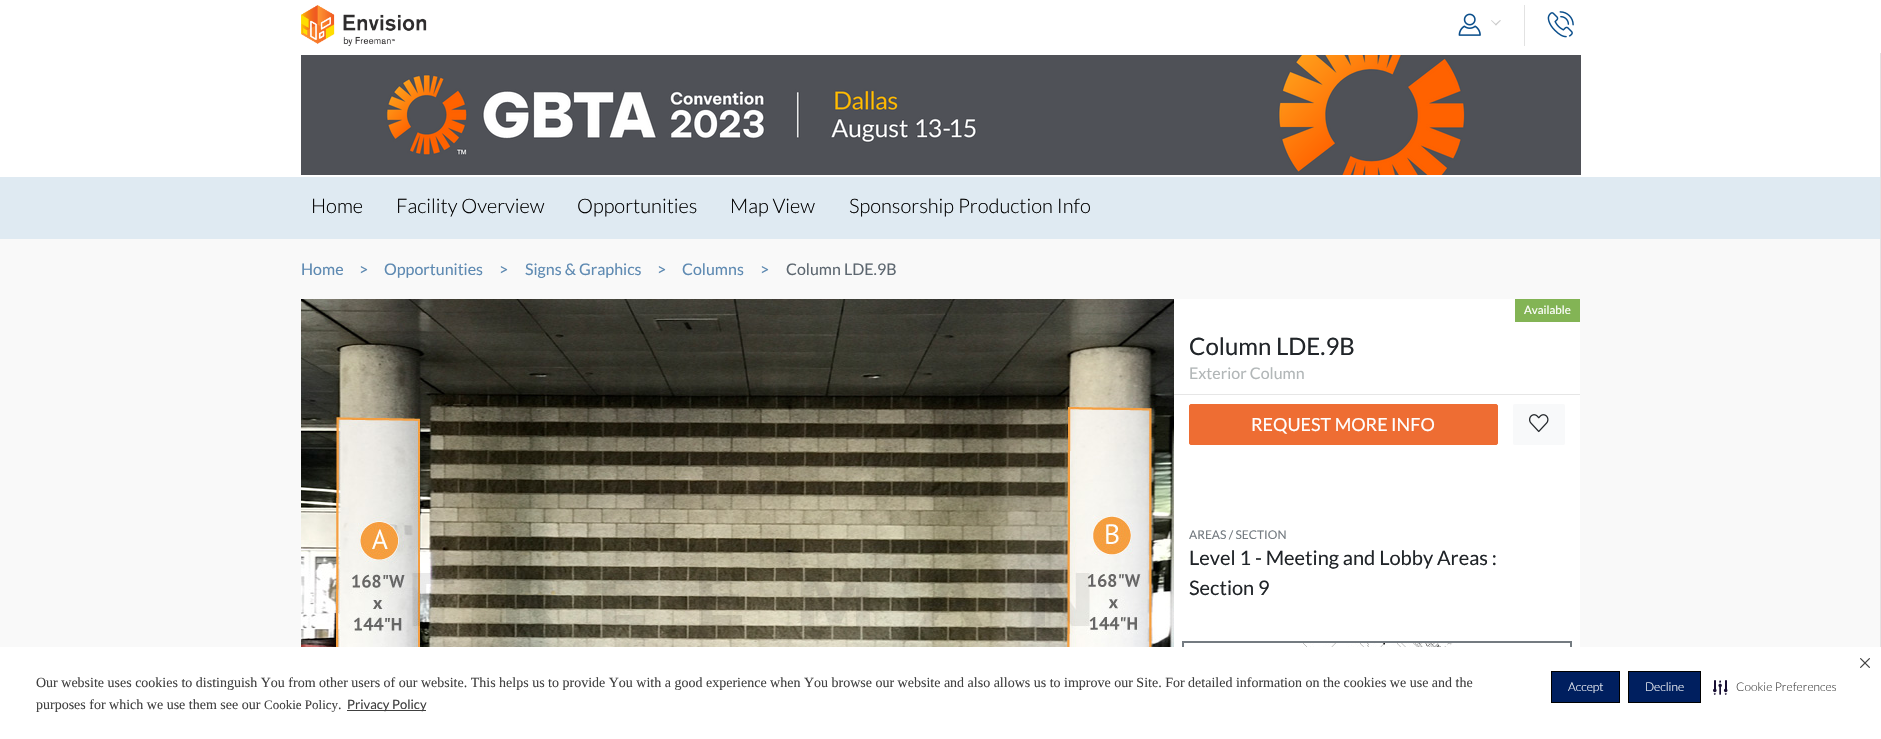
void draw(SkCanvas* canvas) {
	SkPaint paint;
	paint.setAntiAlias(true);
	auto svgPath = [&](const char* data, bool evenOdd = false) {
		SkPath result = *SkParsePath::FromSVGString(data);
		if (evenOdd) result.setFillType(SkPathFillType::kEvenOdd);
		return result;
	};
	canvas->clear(0xfff9f9f9);
	paint.setColor(0xffffffff);
	canvas->drawRect(SkRect::MakeXYWH(0, 0, 1881, 53), paint);
	canvas->drawImageRect(SkImages::DeferredFromEncodedData(SkData::MakeFromFileName("img1.png")), SkRect::MakeXYWH(301, 5, 126, 41), SkSamplingOptions());
	paint.setColor(0xffe2e2e2);
	canvas->drawRect(SkRect::MakeXYWH(1524, 5, 1, 41), paint);
	canvas->drawImageRect(SkImages::DeferredFromEncodedData(SkData::MakeFromFileName("img2.png")), SkRect::MakeXYWH(1458, 13, 23, 23), SkSamplingOptions());
	paint.setColor(0xffcccccc);
	canvas->drawPath(svgPath("M1500 20L1501 20.5L1496 25.5L1495 24.5Z"), paint);
	canvas->drawPath(svgPath("M1491.5 20L1496.5 24.5L1496 25.5L1491 20.5Z"), paint);
	canvas->drawImageRect(SkImages::DeferredFromEncodedData(SkData::MakeFromFileName("img3.png")), SkRect::MakeXYWH(1547, 11, 27, 27), SkSamplingOptions());
	paint.setColor(0xffffffff);
	canvas->drawRect(SkRect::MakeXYWH(0, 53, 1880, 124), paint);
	canvas->drawImageRect(SkImages::DeferredFromEncodedData(SkData::MakeFromFileName("img4.png")), SkRect::MakeXYWH(301, 55, 1280, 120), SkSamplingOptions());
	paint.setColor(0xffe2e2e2);
	canvas->drawRect(SkRect::MakeXYWH(1880, 53, 1, 594), paint);
	paint.setColor(0xffdfeaf2);
	canvas->drawRect(SkRect::MakeXYWH(0, 177, 1880, 62), paint);
	SkFont f1(fontMgr->matchFamilyStyle("Lato", SkFontStyle(300, SkFontStyle::kNormal_Width, SkFontStyle::kUpright_Slant)), 20);
	f1.setSubpixel(true);
	paint.setColor(0xff000000);
	canvas->drawString("Home", 311, 213, f1, paint);
	canvas->drawString("Facility Overview", 396, 213, f1, paint);
	canvas->drawString("Opportunities", 577, 213, f1, paint);
	canvas->drawString("Map View", 730, 213, f1, paint);
	canvas->drawString("Sponsorship Production Info", 849, 213, f1, paint);
	SkFont f2(fontMgr->matchFamilyStyle("Lato", SkFontStyle::Normal()), 16);
	f2.setSubpixel(true);
	paint.setColor(0xff5e8ab2);
	canvas->drawString("Home", 301, 275, f2, paint);
	canvas->drawString(">", 359, 275, f2, paint);
	canvas->drawString("Opportunities", 384, 275, f2, paint);
	canvas->drawString(">", 499, 275, f2, paint);
	canvas->drawString("Signs & Graphics", 525, 275, f2, paint);
	canvas->drawString(">", 657, 275, f2, paint);
	canvas->drawString("Columns", 682, 275, f2, paint);
	canvas->drawString(">", 760, 275, f2, paint);
	paint.setColor(0xff5d6770);
	canvas->drawString("Column LDE.9B", 786, 275, f2, paint);
	canvas->drawImageRect(SkImages::DeferredFromEncodedData(SkData::MakeFromFileName("img5.png")), SkRect::MakeXYWH(301, 299, 873, 348), SkSamplingOptions());
	paint.setColor(0xffffffff);
	canvas->drawRect(SkRect::MakeXYWH(1174, 299, 406, 348), paint);
	paint.setColor(0xff83b455);
	canvas->drawRect(SkRect::MakeXYWH(1515, 299, 65, 23), paint);
	SkFont f3(fontMgr->matchFamilyStyle("Lato", SkFontStyle::Normal()), 11.5);
	f3.setSubpixel(true);
	paint.setColor(0xffffffff);
	canvas->drawString("Available", 1524, 314, f3, paint);
	SkFont f4(fontMgr->matchFamilyStyle("Lato", SkFontStyle::Normal()), 24);
	f4.setSubpixel(true);
	paint.setColor(0xff212529);
	canvas->drawString("Column LDE.9B", 1189, 355, f4, paint);
	paint.setColor(0xffb2b7b8);
	canvas->drawString("Exterior Column", 1189, 379, f2, paint);
	paint.setColor(0xffe6e6e6);
	canvas->drawRect(SkRect::MakeXYWH(1174, 394, 406, 1), paint);
	paint.setColor(0xffee6d33);
	canvas->drawRoundRect(SkRect::MakeXYWH(1189.5, 404.5, 308, 40), 1.5, 1.5, paint);
	paint.setStroke(true);
	paint.setStrokeWidth(1);
	canvas->drawRoundRect(SkRect::MakeXYWH(1189.5, 404.5, 308, 40), 1.5, 1.5, paint);
	SkFont f5(fontMgr->matchFamilyStyle("Lato", SkFontStyle::Normal()), 18);
	f5.setSubpixel(true);
	paint.setStroke(false);
	paint.setColor(0xffffffff);
	canvas->drawString("REQUEST MORE INFO", 1251, 431, f5, paint);
	paint.setColor(0xfff8f9fa);
	canvas->drawRoundRect(SkRect::MakeXYWH(1513, 404, 52, 41), 2, 2, paint);
	canvas->drawImageRect(SkImages::DeferredFromEncodedData(SkData::MakeFromFileName("img6.png")), SkRect::MakeXYWH(1529, 414, 20, 19), SkSamplingOptions());
	SkFont f6(fontMgr->matchFamilyStyle("Lato", SkFontStyle::Normal()), 12);
	f6.setSubpixel(true);
	paint.setColor(0xff747b81);
	canvas->drawString("AREAS / SECTION", 1189, 539, f6, paint);
	SkFont f7(fontMgr->matchFamilyStyle("Lato", SkFontStyle::Normal()), 20);
	f7.setSubpixel(true);
	paint.setColor(0xff212529);
	canvas->drawString("Level 1 - Meeting and Lobby Areas :", 1189, 565, f7, paint);
	canvas->drawString("Section 9", 1189, 595, f7, paint);
	paint.setStroke(true);
	paint.setStrokeWidth(2);
	paint.setColor(0xff747b81);
	canvas->drawRect(SkRect::MakeXYWH(1183, 642, 388, 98), paint);
	canvas->drawImageRect(SkImages::DeferredFromEncodedData(SkData::MakeFromFileName("img7.png")), SkRect::MakeXYWH(1299, 643, 159, 4), SkSamplingOptions());
	paint.setStroke(false);
	paint.setColor(0xffffffff);
	canvas->drawRect(SkRect::MakeXYWH(0, 647, 1881, 92), paint);
	SkFont f8(fontMgr->matchFamilyStyle("Liberation Serif", SkFontStyle::Normal()), 14);
	f8.setSubpixel(true);
	paint.setColor(0xff404040);
	canvas->drawString("Our website uses cookies to distinguish You from other users of our website. This helps us to provide You with a good experience when You browse our website and also allows us to improve our Site. For detailed information on the cookies we use and the", 36, 687, f8, paint);
	canvas->drawString("purposes for which we use them see our", 36, 709, f8, paint);
	SkFont f9(fontMgr->matchFamilyStyle("Liberation Serif", SkFontStyle::Normal()), 13);
	f9.setSubpixel(true);
	canvas->drawString("Cookie Policy", 264, 709, f9, paint);
	canvas->drawString(".", 338, 709, f8, paint);
	canvas->drawRect(SkRect::MakeXYWH(347, 710, 79, 1), paint);
	SkFont f10(fontMgr->matchFamilyStyle("Lato", SkFontStyle::Normal()), 13);
	f10.setSubpixel(true);
	canvas->drawString("Privacy Policy", 347, 709, f10, paint);
	canvas->drawImageRect(SkImages::DeferredFromEncodedData(SkData::MakeFromFileName("img8.png")), SkRect::MakeXYWH(1860, 658, 10, 10), SkSamplingOptions());
	paint.setColor(0xff001f5f);
	canvas->drawRect(SkRect::MakeXYWH(1551.5, 671.5, 68, 31), paint);
	paint.setStroke(true);
	paint.setStrokeWidth(1);
	paint.setColor(0xff000000);
	canvas->drawRect(SkRect::MakeXYWH(1551.5, 671.5, 68, 31), paint);
	SkFont f11(fontMgr->matchFamilyStyle("Lato", SkFontStyle(300, SkFontStyle::kNormal_Width, SkFontStyle::kUpright_Slant)), 12);
	f11.setSubpixel(true);
	paint.setStroke(false);
	paint.setColor(0xffffffff);
	canvas->drawString("Accept", 1568, 691, f11, paint);
	paint.setColor(0xff001f5f);
	canvas->drawRect(SkRect::MakeXYWH(1628.5, 671.5, 72, 31), paint);
	paint.setStroke(true);
	paint.setColor(0xff000000);
	canvas->drawRect(SkRect::MakeXYWH(1628.5, 671.5, 72, 31), paint);
	paint.setStroke(false);
	paint.setColor(0xffffffff);
	canvas->drawString("Decline", 1645, 691, f11, paint);
	canvas->drawImageRect(SkImages::DeferredFromEncodedData(SkData::MakeFromFileName("img9.png")), SkRect::MakeXYWH(1713, 680, 15, 15), SkSamplingOptions());
	paint.setColor(0xff404040);
	canvas->drawString("Cookie Preferences", 1736, 691, f11, paint);
}
